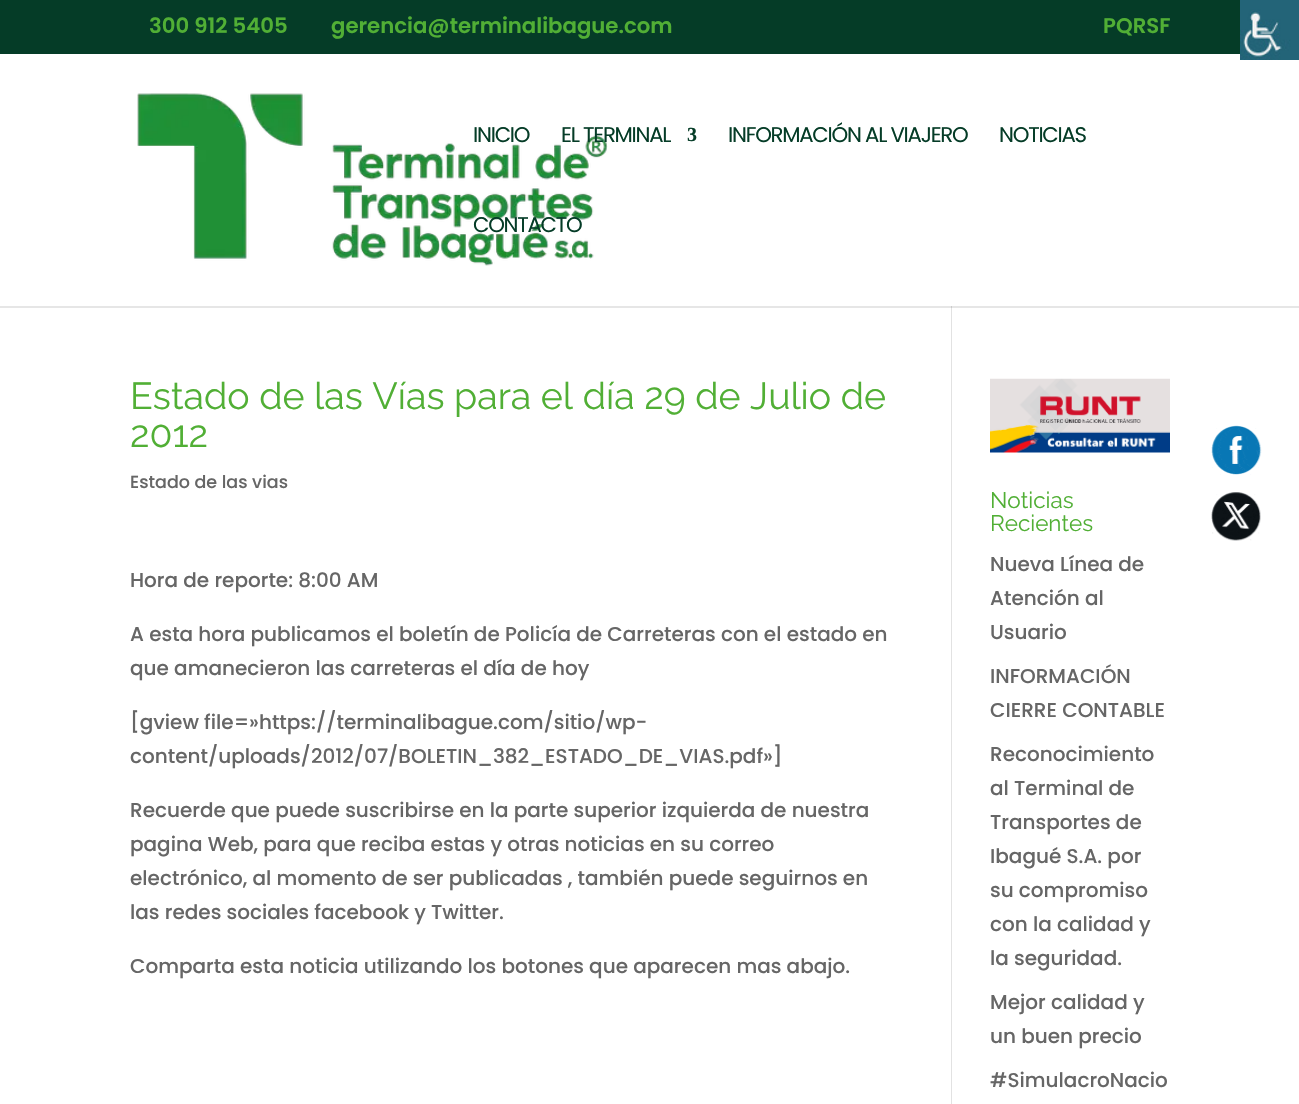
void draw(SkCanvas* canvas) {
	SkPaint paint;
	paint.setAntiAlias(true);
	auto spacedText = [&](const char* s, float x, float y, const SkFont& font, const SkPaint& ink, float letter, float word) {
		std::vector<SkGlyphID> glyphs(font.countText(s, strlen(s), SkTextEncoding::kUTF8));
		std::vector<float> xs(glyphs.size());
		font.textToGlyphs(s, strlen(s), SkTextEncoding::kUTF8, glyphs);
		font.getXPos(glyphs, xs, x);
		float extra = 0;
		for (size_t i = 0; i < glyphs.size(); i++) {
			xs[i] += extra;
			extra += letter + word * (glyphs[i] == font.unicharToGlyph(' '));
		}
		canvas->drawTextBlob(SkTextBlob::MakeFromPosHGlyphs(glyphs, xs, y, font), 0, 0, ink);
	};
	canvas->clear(0xffffffff);
	paint.setColor(0xffe6e6e6);
	canvas->drawRect(SkRect::MakeXYWH(0, 306, 1299, 2), paint);
	paint.setColor(0xff053c27);
	canvas->drawRect(SkRect::MakeXYWH(0, 0, 1240, 54), paint);
	SkFont f1(fontMgr->matchFamilyStyle("Poppins", SkFontStyle(600, SkFontStyle::kNormal_Width, SkFontStyle::kUpright_Slant)), 21.25);
	f1.setSubpixel(true);
	paint.setColor(0xff51af35);
	canvas->drawString("300 912 5405", 149, 33, f1, paint);
	canvas->drawString("gerencia@terminalibague.com", 331, 33, f1, paint);
	canvas->drawString("PQRSF", 1103, 33, f1, paint);
	canvas->drawImageRect(SkImages::DeferredFromEncodedData(SkData::MakeFromFileName("img1.png")), SkRect::MakeXYWH(137, 93, 471, 173), SkSamplingOptions());
	SkFont f2(fontMgr->matchFamilyStyle("Poppins", SkFontStyle::Normal()), 21.25);
	f2.setSubpixel(true);
	paint.setColor(0xff053c27);
	spacedText("INICIO", 473, 142, f2, paint, -1.25, 0);
	spacedText("EL TERMINAL", 561, 142, f2, paint, -1.25, 0);
	SkFont f3(fontMgr->matchFamilyStyle("Liberation Serif", SkFontStyle::Bold()), 20);
	f3.setSubpixel(true);
	spacedText("3", 687, 141, f3, paint, -1.25, 0);
	spacedText("INFORMACIÓN AL VIAJERO", 728, 142, f2, paint, -1.25, 0);
	spacedText("NOTICIAS", 999, 142, f2, paint, -1.25, 0);
	spacedText("CONTACTO", 473, 232, f2, paint, -1.25, 0);
	paint.setColor(0xffe2e2e2);
	canvas->drawRect(SkRect::MakeXYWH(951, 306, 1, 798), paint);
	paint.setColor(0xffcbcbcb);
	canvas->drawRect(SkRect::MakeXYWH(951, 306, 1, 2), paint);
	SkFont f4(fontMgr->matchFamilyStyle("Raleway", SkFontStyle::Normal()), 37.5);
	f4.setSubpixel(true);
	paint.setColor(0xff51af35);
	canvas->drawString("Estado de las Vías para el día 29 de Julio de", 130, 409, f4, paint);
	canvas->drawString("2012", 130, 447, f4, paint);
	SkFont f5(fontMgr->matchFamilyStyle("Poppins", SkFontStyle(500, SkFontStyle::kNormal_Width, SkFontStyle::kUpright_Slant)), 17.5);
	f5.setSubpixel(true);
	paint.setColor(0xff666666);
	canvas->drawString("Estado de las vias", 130, 488, f5, paint);
	SkFont f6(fontMgr->matchFamilyStyle("Poppins", SkFontStyle(500, SkFontStyle::kNormal_Width, SkFontStyle::kUpright_Slant)), 20);
	f6.setSubpixel(true);
	canvas->drawString("Hora de reporte: 8:00 AM", 130, 587, f6, paint);
	canvas->drawString("A esta hora publicamos el boletín de Policía de Carreteras con el estado en", 130, 641, f6, paint);
	canvas->drawString("que amanecieron las carreteras el día de hoy", 130, 675, f6, paint);
	canvas->drawString("[gview file=»https://terminalibague.com/sitio/wp-", 130, 729, f6, paint);
	canvas->drawString("content/uploads/2012/07/BOLETIN_382_ESTADO_DE_VIAS.pdf»]", 130, 763, f6, paint);
	canvas->drawString("Recuerde que puede suscribirse en la parte superior izquierda de nuestra", 130, 817, f6, paint);
	canvas->drawString("pagina Web, para que reciba estas y otras noticias en su correo", 130, 851, f6, paint);
	canvas->drawString("electrónico, al momento de ser publicadas , también puede seguirnos en", 130, 885, f6, paint);
	canvas->drawString("las redes sociales facebook y Twitter.", 130, 919, f6, paint);
	canvas->drawString("Comparta esta noticia utilizando los botones que aparecen mas abajo.", 130, 973, f6, paint);
	canvas->drawImageRect(SkImages::DeferredFromEncodedData(SkData::MakeFromFileName("img2.png")), SkRect::MakeXYWH(990, 378, 180, 75), SkSamplingOptions());
	SkFont f7(fontMgr->matchFamilyStyle("Raleway", SkFontStyle::Normal()), 22.5);
	f7.setSubpixel(true);
	paint.setColor(0xff51af35);
	canvas->drawString("Noticias", 990, 508, f7, paint);
	canvas->drawString("Recientes", 990, 531, f7, paint);
	paint.setColor(0xff666666);
	canvas->drawString("Nueva Línea de", 990, 571, f6, paint);
	canvas->drawString("Atención al", 990, 605, f6, paint);
	canvas->drawString("Usuario", 990, 639, f6, paint);
	canvas->drawString("INFORMACIÓN", 990, 683, f6, paint);
	canvas->drawString("CIERRE CONTABLE", 990, 717, f6, paint);
	canvas->drawString("Reconocimiento", 990, 761, f6, paint);
	canvas->drawString("al Terminal de", 990, 795, f6, paint);
	canvas->drawString("Transportes de", 990, 829, f6, paint);
	canvas->drawString("Ibagué S.A. por", 990, 863, f6, paint);
	canvas->drawString("su compromiso", 990, 897, f6, paint);
	canvas->drawString("con la calidad y", 990, 931, f6, paint);
	canvas->drawString("la seguridad.", 990, 965, f6, paint);
	canvas->drawString("Mejor calidad y", 990, 1009, f6, paint);
	canvas->drawString("un buen precio", 990, 1043, f6, paint);
	canvas->drawString("#SimulacroNacio", 990, 1087, f6, paint);
	canvas->drawImageRect(SkImages::DeferredFromEncodedData(SkData::MakeFromFileName("img3.png")), SkRect::MakeXYWH(1211, 425, 51, 50), SkSamplingOptions());
	canvas->drawImageRect(SkImages::DeferredFromEncodedData(SkData::MakeFromFileName("img4.png")), SkRect::MakeXYWH(1211, 492, 50, 49), SkSamplingOptions());
	canvas->drawImageRect(SkImages::DeferredFromEncodedData(SkData::MakeFromFileName("img5.png")), SkRect::MakeXYWH(1240, 0, 59, 60), SkSamplingOptions());
}
